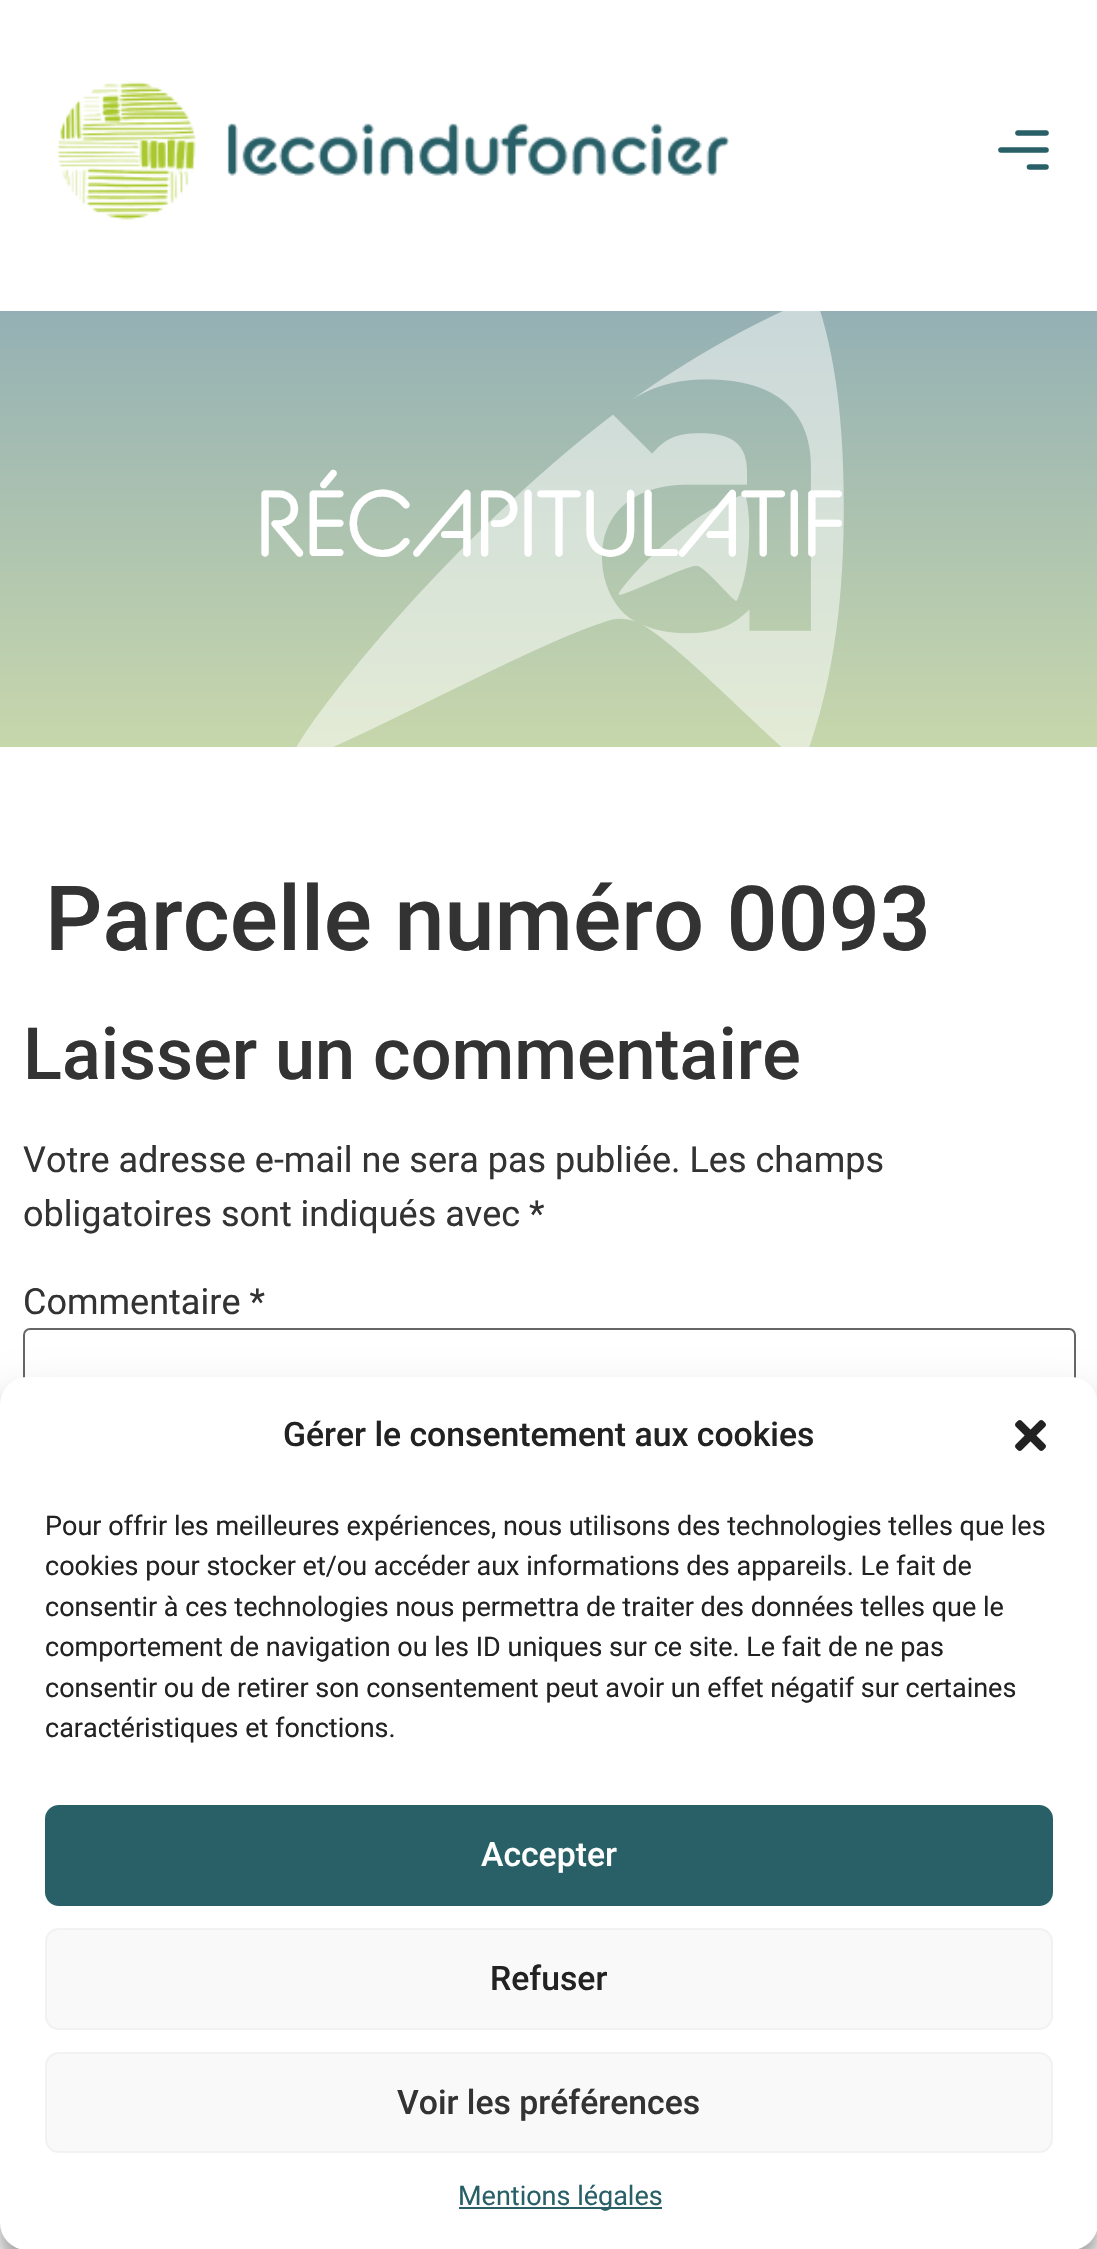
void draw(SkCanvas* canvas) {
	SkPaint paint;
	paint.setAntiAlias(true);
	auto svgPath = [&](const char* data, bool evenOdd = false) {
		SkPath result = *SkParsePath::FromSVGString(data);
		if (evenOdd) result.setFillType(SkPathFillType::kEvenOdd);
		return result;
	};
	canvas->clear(0xffffffff);
	canvas->drawImageRect(SkImages::DeferredFromEncodedData(SkData::MakeFromFileName("img1.png")), SkRect::MakeXYWH(57, 80, 672, 140), SkSamplingOptions());
	paint.setStroke(true);
	paint.setStrokeWidth(5.6);
	paint.setStrokeCap(SkPaint::kRound_Cap);
	paint.setStrokeJoin(SkPaint::kRound_Join);
	paint.setColor(0xff296068);
	canvas->drawPath(svgPath("M1046 133H1018M1046 150H1001M1046 167H1029.5"), paint);
	paint.setStroke(false);
	{
		const SkColor colors[] = {0xff94b0b4, 0xffc7d7ac};
		const float stops[] = {0, 1};
		const SkPoint ends[] = {{549, 310}, {549, 747}};
		paint.setShader(SkGradientShader::MakeLinear(ends, colors, stops, 2, SkTileMode::kClamp));
		paint.setAlpha(255);
	}
	canvas->drawRect(SkRect::MakeXYWH(0, 311, 1097, 436), paint);
	canvas->drawImageRect(SkImages::DeferredFromEncodedData(SkData::MakeFromFileName("img2.png")), SkRect::MakeXYWH(296, 311, 548, 436), SkSamplingOptions());
	SkFont f1(fontMgr->matchFamilyStyle("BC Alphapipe", SkFontStyle::Bold()), 90);
	f1.setSubpixel(true);
	paint.setShader(nullptr);
	paint.setColor(0xffffffff);
	canvas->drawString("RÉCAPITULATIF", 255, 556, f1, paint);
	SkFont f2(fontMgr->matchFamilyStyle("Roboto", SkFontStyle(500, SkFontStyle::kNormal_Width, SkFontStyle::kUpright_Slant)), 90);
	f2.setSubpixel(true);
	paint.setColor(0xff333333);
	canvas->drawString("Parcelle numéro 0093", 45, 950, f2, paint);
	SkFont f3(fontMgr->matchFamilyStyle("Roboto", SkFontStyle(500, SkFontStyle::kNormal_Width, SkFontStyle::kUpright_Slant)), 72);
	f3.setSubpixel(true);
	canvas->drawString("Laisser un commentaire", 23, 1079, f3, paint);
	SkFont f4(fontMgr->matchFamilyStyle("Roboto", SkFontStyle::Normal()), 36);
	f4.setSubpixel(true);
	canvas->drawString("Votre adresse e-mail ne sera pas publiée. Les champs", 23, 1172, f4, paint);
	canvas->drawString("obligatoires sont indiqués avec *", 23, 1226, f4, paint);
	canvas->drawString("Commentaire *", 23, 1314, f4, paint);
	paint.setStroke(true);
	paint.setStrokeWidth(2);
	paint.setStrokeCap(SkPaint::kButt_Cap);
	paint.setStrokeJoin(SkPaint::kMiter_Join);
	paint.setColor(0xff666666);
	canvas->drawRoundRect(SkRect::MakeXYWH(24, 1329, 1051, 470), 6, 6, paint);
	paint.setStroke(false);
	paint.setColor(0x3b000000);
	paint.setMaskFilter(SkMaskFilter::MakeBlur(kNormal_SkBlurStyle, 7));
	canvas->drawRoundRect(SkRect::MakeXYWH(0, 1391, 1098, 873), 27, 27, paint);
	paint.setMaskFilter(nullptr);
	paint.setColor(0x30000000);
	paint.setMaskFilter(SkMaskFilter::MakeBlur(kNormal_SkBlurStyle, 22.5));
	canvas->drawRoundRect(SkRect::MakeXYWH(0, 1400, 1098, 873), 27, 27, paint);
	paint.setMaskFilter(nullptr);
	paint.setColor(0xffffffff);
	canvas->drawRoundRect(SkRect::MakeXYWH(0, 1377, 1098, 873), 27, 27, paint);
	SkFont f5(fontMgr->matchFamilyStyle("Roboto", SkFontStyle(500, SkFontStyle::kNormal_Width, SkFontStyle::kUpright_Slant)), 33.75);
	f5.setSubpixel(true);
	paint.setColor(0xff222222);
	canvas->drawString("Gérer le consentement aux cookies", 283, 1446, f5, paint);
	canvas->drawImageRect(SkImages::DeferredFromEncodedData(SkData::MakeFromFileName("img3.png")), SkRect::MakeXYWH(1015, 1420, 31, 31), SkSamplingOptions());
	SkFont f6(fontMgr->matchFamilyStyle("Roboto", SkFontStyle::Normal()), 27);
	f6.setSubpixel(true);
	canvas->drawString("Pour offrir les meilleures expériences, nous utilisons des technologies telles que les", 45, 1535, f6, paint);
	canvas->drawString("cookies pour stocker et/ou accéder aux informations des appareils. Le fait de", 45, 1575, f6, paint);
	canvas->drawString("consentir à ces technologies nous permettra de traiter des données telles que le", 45, 1616, f6, paint);
	canvas->drawString("comportement de navigation ou les ID uniques sur ce site. Le fait de ne pas", 45, 1656, f6, paint);
	canvas->drawString("consentir ou de retirer son consentement peut avoir un effet négatif sur certaines", 45, 1697, f6, paint);
	canvas->drawString("caractéristiques et fonctions.", 45, 1737, f6, paint);
	paint.setColor(0xff296068);
	canvas->drawRoundRect(SkRect::MakeXYWH(46, 1806, 1006, 99), 13, 13, paint);
	paint.setStroke(true);
	canvas->drawRoundRect(SkRect::MakeXYWH(46, 1806, 1006, 99), 13, 13, paint);
	paint.setStroke(false);
	paint.setColor(0xffffffff);
	canvas->drawString("Accepter", 481, 1866, f5, paint);
	paint.setColor(0xfff9f9f9);
	canvas->drawRoundRect(SkRect::MakeXYWH(46, 1929, 1006, 100), 13, 13, paint);
	paint.setStroke(true);
	paint.setColor(0xfff2f2f2);
	canvas->drawRoundRect(SkRect::MakeXYWH(46, 1929, 1006, 100), 13, 13, paint);
	paint.setStroke(false);
	paint.setColor(0xff222222);
	canvas->drawString("Refuser", 490, 1990, f5, paint);
	paint.setColor(0xfff9f9f9);
	canvas->drawRoundRect(SkRect::MakeXYWH(46, 2053, 1006, 99), 13, 13, paint);
	paint.setStroke(true);
	paint.setColor(0xfff2f2f2);
	canvas->drawRoundRect(SkRect::MakeXYWH(46, 2053, 1006, 99), 13, 13, paint);
	paint.setStroke(false);
	paint.setColor(0xff333333);
	canvas->drawString("Voir les préférences", 397, 2114, f5, paint);
	paint.setColor(0xff296068);
	canvas->drawRect(SkRect::MakeXYWH(459, 2207, 203, 2), paint);
	canvas->drawString("Mentions légales", 458, 2205, f6, paint);
}
